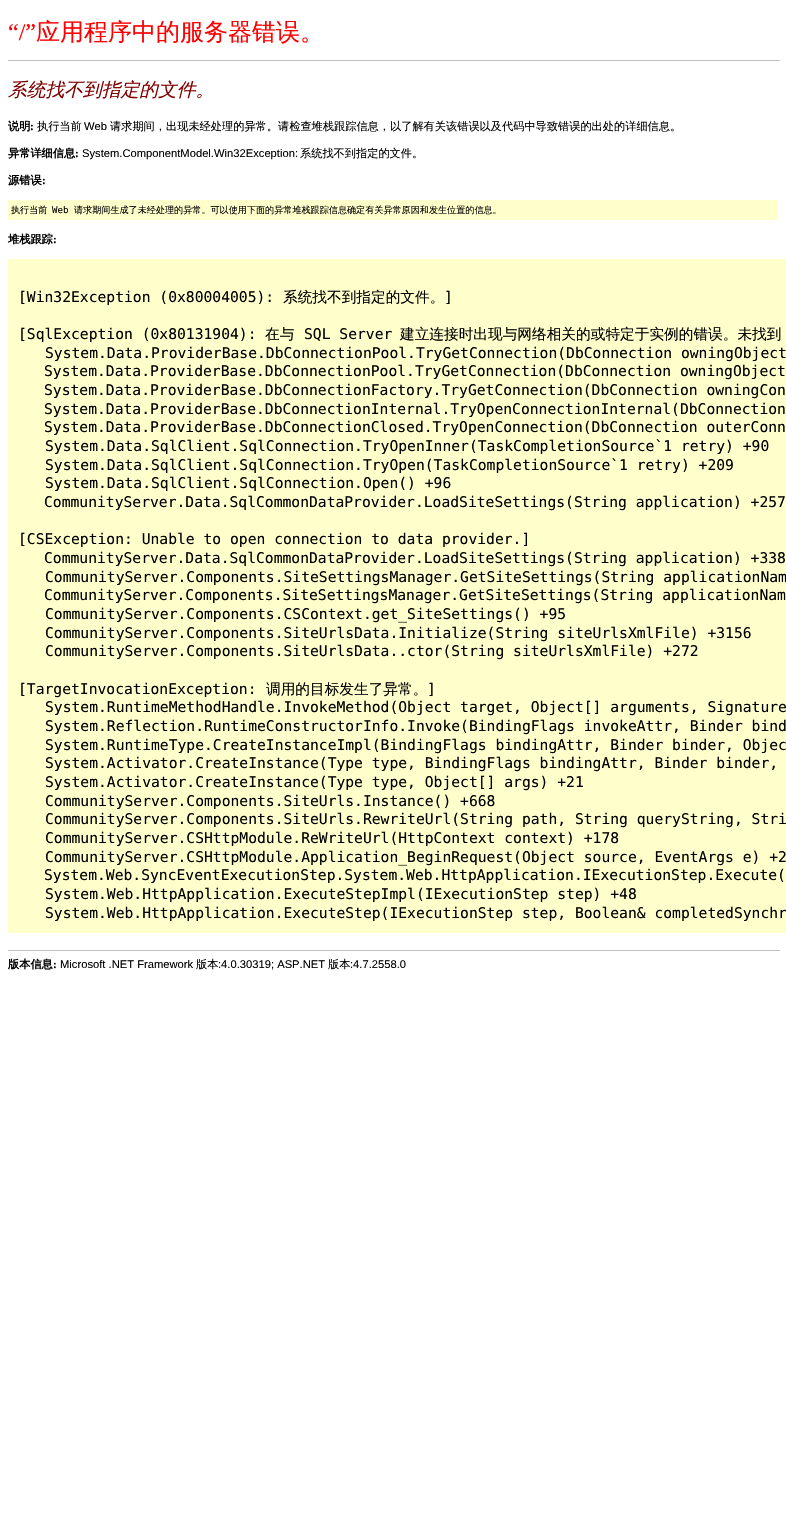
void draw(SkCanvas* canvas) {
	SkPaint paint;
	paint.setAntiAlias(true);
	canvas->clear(0xffffffff);
	SkFont f1(fontMgr->matchFamilyStyle("Liberation Serif", SkFontStyle::Normal()), 24);
	f1.setSubpixel(true);
	paint.setColor(0xffff0000);
	canvas->drawString("“/”", 8, 40, f1, paint);
	SkFont f2(fontMgr->matchFamilyStyle("WenQuanYi Zen Hei", SkFontStyle(500, SkFontStyle::kNormal_Width, SkFontStyle::kUpright_Slant)), 24);
	f2.setSubpixel(true);
	canvas->drawString("应用程序中的服务器错误。", 36, 40, f2, paint);
	paint.setColor(0xffc0c0c0);
	canvas->drawRect(SkRect::MakeXYWH(8, 60, 772, 1), paint);
	SkFont f3(fontMgr->matchFamilyStyle("WenQuanYi Zen Hei", SkFontStyle(500, SkFontStyle::kNormal_Width, SkFontStyle::kItalic_Slant)), 18.75);
	f3.setSubpixel(true);
	paint.setColor(0xff800000);
	canvas->drawString("系统找不到指定的文件。", 8, 96, f3, paint);
	SkFont f4(fontMgr->matchFamilyStyle("WenQuanYi Zen Hei", SkFontStyle::Bold()), 11.2);
	f4.setSubpixel(true);
	paint.setColor(0xff000000);
	canvas->drawString("说明", 8, 130, f4, paint);
	SkFont f5(fontMgr->matchFamilyStyle("Liberation Serif", SkFontStyle::Bold()), 11.2);
	f5.setSubpixel(true);
	canvas->drawString(":", 30, 130, f5, paint);
	SkFont f6(fontMgr->matchFamilyStyle("WenQuanYi Zen Hei", SkFontStyle(500, SkFontStyle::kNormal_Width, SkFontStyle::kUpright_Slant)), 11.2);
	f6.setSubpixel(true);
	canvas->drawString("执行当前", 37, 130, f6, paint);
	SkFont f7(fontMgr->matchFamilyStyle("Liberation Sans", SkFontStyle::Normal()), 11.2);
	f7.setSubpixel(true);
	canvas->drawString("Web", 84, 130, f7, paint);
	canvas->drawString("请求期间，出现未经处理的异常。请检查堆栈跟踪信息，以了解有关该错误以及代码中导致错误的出处的详细信息。", 110, 130, f6, paint);
	canvas->drawString("异常详细信息", 8, 157, f4, paint);
	canvas->drawString(":", 75, 157, f5, paint);
	canvas->drawString("System.ComponentModel.Win32Exception:", 82, 157, f7, paint);
	canvas->drawString("系统找不到指定的文件。", 300, 157, f6, paint);
	canvas->drawString("源错误", 8, 184, f4, paint);
	canvas->drawString(":", 42, 184, f5, paint);
	paint.setColor(0xffffffcc);
	canvas->drawRect(SkRect::MakeXYWH(8, 200, 770, 20), paint);
	SkFont f8(fontMgr->matchFamilyStyle("WenQuanYi Zen Hei", SkFontStyle(500, SkFontStyle::kNormal_Width, SkFontStyle::kUpright_Slant)), 9.1);
	f8.setSubpixel(true);
	paint.setColor(0xff000000);
	canvas->drawString("执行当前", 11, 213, f8, paint);
	SkFont f9(fontMgr->matchFamilyStyle("DejaVu Sans Mono", SkFontStyle::Normal()), 9.1);
	f9.setSubpixel(true);
	canvas->drawString("Web", 52, 213, f9, paint);
	canvas->drawString("请求期间生成了未经处理的异常。可以使用下面的异常堆栈跟踪信息确定有关异常原因和发生位置的信息。", 74, 213, f8, paint);
	canvas->drawString("堆栈跟踪", 8, 243, f4, paint);
	canvas->drawString(":", 53, 243, f5, paint);
	paint.setColor(0xffffffcc);
	canvas->drawRect(SkRect::MakeXYWH(8, 259, 778, 674), paint);
	SkFont f10(fontMgr->matchFamilyStyle("DejaVu Sans Mono", SkFontStyle::Normal()), 14.67);
	f10.setSubpixel(true);
	paint.setColor(0xff000000);
	canvas->drawString("[Win32Exception (0x80004005):", 18, 302, f10, paint);
	SkFont f11(fontMgr->matchFamilyStyle("WenQuanYi Zen Hei", SkFontStyle(500, SkFontStyle::kNormal_Width, SkFontStyle::kUpright_Slant)), 14.67);
	f11.setSubpixel(true);
	canvas->drawString("系统找不到指定的文件。", 283, 302, f11, paint);
	canvas->drawString("]", 444, 302, f10, paint);
	canvas->drawString("[SqlException (0x80131904):", 18, 339, f10, paint);
	canvas->drawString("在与", 265, 339, f11, paint);
	canvas->drawString("SQL Server", 304, 339, f10, paint);
	canvas->drawString("建立连接时出现与网络相关的或特定于实例的错误。未找到", 400, 339, f11, paint);
	canvas->drawString("System.Data.ProviderBase.DbConnectionPool.TryGetConnection(DbConnection owningObject", 45, 358, f10, paint);
	canvas->drawString("System.Data.ProviderBase.DbConnectionPool.TryGetConnection(DbConnection owningObject", 44, 376, f10, paint);
	canvas->drawString("System.Data.ProviderBase.DbConnectionFactory.TryGetConnection(DbConnection owningCon", 44, 395, f10, paint);
	canvas->drawString("System.Data.ProviderBase.DbConnectionInternal.TryOpenConnectionInternal(DbConnection", 44, 414, f10, paint);
	canvas->drawString("System.Data.ProviderBase.DbConnectionClosed.TryOpenConnection(DbConnection outerConn", 44, 432, f10, paint);
	canvas->drawString("System.Data.SqlClient.SqlConnection.TryOpenInner(TaskCompletionSource`1 retry) +90", 45, 451, f10, paint);
	canvas->drawString("System.Data.SqlClient.SqlConnection.TryOpen(TaskCompletionSource`1 retry) +209", 45, 470, f10, paint);
	canvas->drawString("System.Data.SqlClient.SqlConnection.Open() +96", 45, 488, f10, paint);
	canvas->drawString("CommunityServer.Data.SqlCommonDataProvider.LoadSiteSettings(String application) +257", 44, 507, f10, paint);
	canvas->drawString("[CSException: Unable to open connection to data provider.]", 18, 544, f10, paint);
	canvas->drawString("CommunityServer.Data.SqlCommonDataProvider.LoadSiteSettings(String application) +338", 44, 563, f10, paint);
	canvas->drawString("CommunityServer.Components.SiteSettingsManager.GetSiteSettings(String applicationNam", 45, 582, f10, paint);
	canvas->drawString("CommunityServer.Components.SiteSettingsManager.GetSiteSettings(String applicationNam", 44, 600, f10, paint);
	canvas->drawString("CommunityServer.Components.CSContext.get_SiteSettings() +95", 45, 619, f10, paint);
	canvas->drawString("CommunityServer.Components.SiteUrlsData.Initialize(String siteUrlsXmlFile) +3156", 45, 638, f10, paint);
	canvas->drawString("CommunityServer.Components.SiteUrlsData..ctor(String siteUrlsXmlFile) +272", 45, 656, f10, paint);
	canvas->drawString("[TargetInvocationException:", 18, 694, f10, paint);
	canvas->drawString("调用的目标发生了异常。", 266, 694, f11, paint);
	canvas->drawString("]", 427, 694, f10, paint);
	canvas->drawString("System.RuntimeMethodHandle.InvokeMethod(Object target, Object[] arguments, Signature", 45, 712, f10, paint);
	canvas->drawString("System.Reflection.RuntimeConstructorInfo.Invoke(BindingFlags invokeAttr, Binder bind", 45, 731, f10, paint);
	canvas->drawString("System.RuntimeType.CreateInstanceImpl(BindingFlags bindingAttr, Binder binder, Objec", 45, 750, f10, paint);
	canvas->drawString("System.Activator.CreateInstance(Type type, BindingFlags bindingAttr, Binder binder,", 45, 768, f10, paint);
	canvas->drawString("System.Activator.CreateInstance(Type type, Object[] args) +21", 45, 787, f10, paint);
	canvas->drawString("CommunityServer.Components.SiteUrls.Instance() +668", 45, 806, f10, paint);
	canvas->drawString("CommunityServer.Components.SiteUrls.RewriteUrl(String path, String queryString, Stri", 45, 824, f10, paint);
	canvas->drawString("CommunityServer.CSHttpModule.ReWriteUrl(HttpContext context) +178", 45, 843, f10, paint);
	canvas->drawString("CommunityServer.CSHttpModule.Application_BeginRequest(Object source, EventArgs e) +2", 45, 862, f10, paint);
	canvas->drawString("System.Web.SyncEventExecutionStep.System.Web.HttpApplication.IExecutionStep.Execute(", 44, 880, f10, paint);
	canvas->drawString("System.Web.HttpApplication.ExecuteStepImpl(IExecutionStep step) +48", 45, 899, f10, paint);
	canvas->drawString("System.Web.HttpApplication.ExecuteStep(IExecutionStep step, Boolean& completedSynchr", 45, 918, f10, paint);
	paint.setColor(0xffc0c0c0);
	canvas->drawRect(SkRect::MakeXYWH(8, 950, 772, 1), paint);
	paint.setColor(0xff000000);
	canvas->drawString("版本信息", 8, 968, f4, paint);
	canvas->drawString(":", 53, 968, f5, paint);
	canvas->drawString("Microsoft .NET Framework", 60, 968, f7, paint);
	canvas->drawString("版本", 196, 968, f6, paint);
	canvas->drawString(":4.0.30319; ASP.NET", 218, 968, f7, paint);
	canvas->drawString("版本", 328, 968, f6, paint);
	canvas->drawString(":4.7.2558.0", 350, 968, f7, paint);
}
